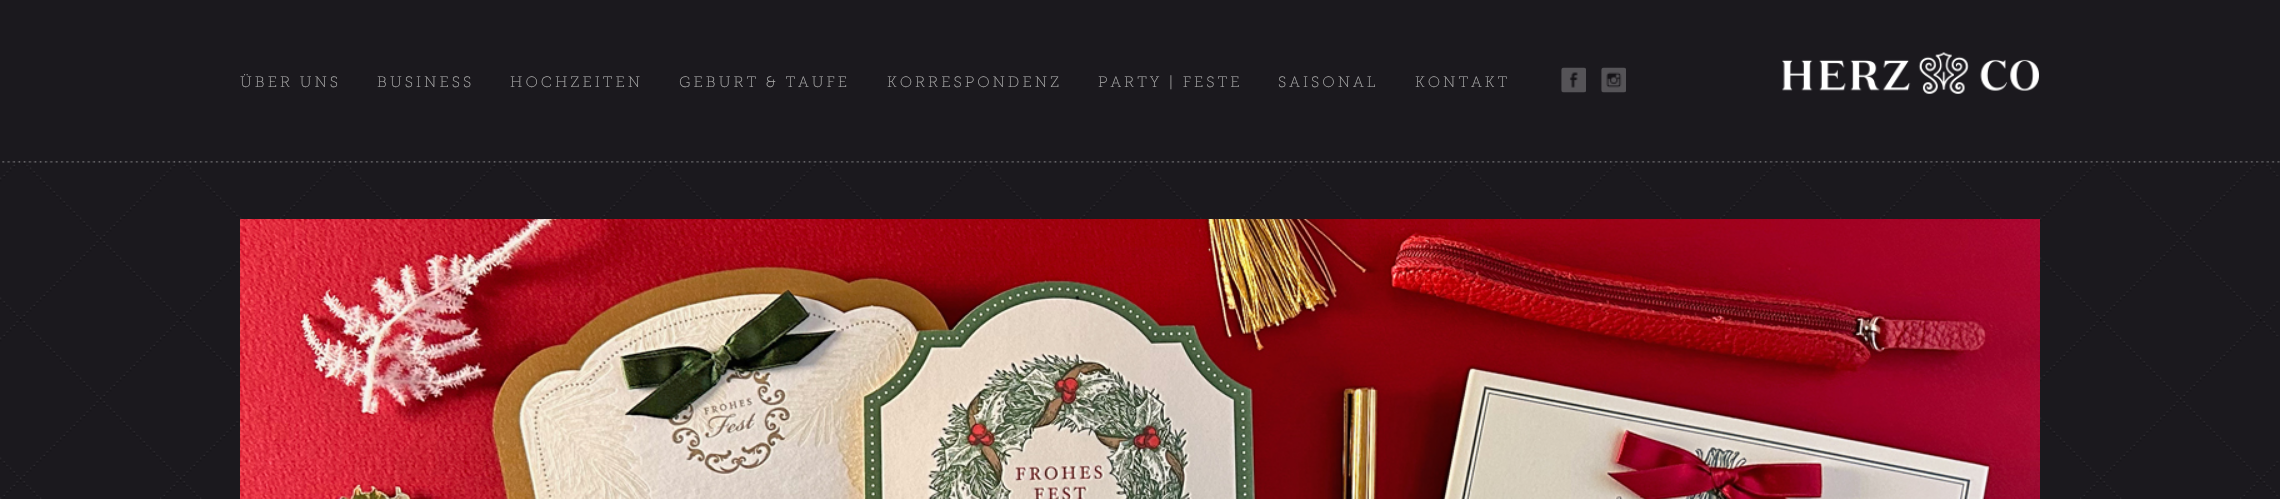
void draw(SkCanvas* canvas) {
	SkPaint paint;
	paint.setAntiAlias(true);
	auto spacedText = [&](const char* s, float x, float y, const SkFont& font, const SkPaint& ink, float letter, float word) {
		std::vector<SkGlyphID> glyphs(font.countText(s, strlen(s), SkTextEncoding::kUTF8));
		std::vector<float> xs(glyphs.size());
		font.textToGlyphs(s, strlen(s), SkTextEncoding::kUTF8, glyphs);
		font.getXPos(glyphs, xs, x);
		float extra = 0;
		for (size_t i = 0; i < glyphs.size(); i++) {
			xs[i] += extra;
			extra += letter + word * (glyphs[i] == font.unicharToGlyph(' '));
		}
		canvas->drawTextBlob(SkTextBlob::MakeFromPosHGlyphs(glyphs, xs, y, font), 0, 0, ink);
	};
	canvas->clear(0xff1b191e);
	canvas->drawImageRect(SkImages::DeferredFromEncodedData(SkData::MakeFromFileName("img1.png")), SkRect::MakeXYWH(0, 163, 2279, 336), SkSamplingOptions());
	canvas->drawImageRect(SkImages::DeferredFromEncodedData(SkData::MakeFromFileName("img2.png")), SkRect::MakeXYWH(2, 161, 2278, 2), SkSamplingOptions());
	SkFont f1(fontMgr->matchFamilyStyle("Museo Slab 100", SkFontStyle(300, SkFontStyle::kNormal_Width, SkFontStyle::kUpright_Slant)), 15);
	f1.setSubpixel(true);
	paint.setColor(0xffaaaaaa);
	spacedText("ÜBER UNS", 240, 87, f1, paint, 3, 0);
	spacedText("BUSINESS", 377, 87, f1, paint, 3, 0);
	spacedText("HOCHZEITEN", 510, 87, f1, paint, 3, 0);
	spacedText("GEBURT & TAUFE", 679, 87, f1, paint, 3, 0);
	spacedText("KORRESPONDENZ", 887, 87, f1, paint, 3, 0);
	spacedText("PARTY | FESTE", 1098, 87, f1, paint, 3, 0);
	spacedText("SAISONAL", 1278, 87, f1, paint, 3, 0);
	spacedText("KONTAKT", 1415, 87, f1, paint, 3, 0);
	canvas->drawImageRect(SkImages::DeferredFromEncodedData(SkData::MakeFromFileName("img3.png")), SkRect::MakeXYWH(1561, 67, 25, 26), SkSamplingOptions());
	canvas->drawImageRect(SkImages::DeferredFromEncodedData(SkData::MakeFromFileName("img4.png")), SkRect::MakeXYWH(1601, 67, 25, 26), SkSamplingOptions());
	canvas->drawImageRect(SkImages::DeferredFromEncodedData(SkData::MakeFromFileName("img5.png")), SkRect::MakeXYWH(1782, 52, 257, 42), SkSamplingOptions());
	canvas->drawImageRect(SkImages::DeferredFromEncodedData(SkData::MakeFromFileName("img6.png")), SkRect::MakeXYWH(240, 219, 1800, 280), SkSamplingOptions());
}
